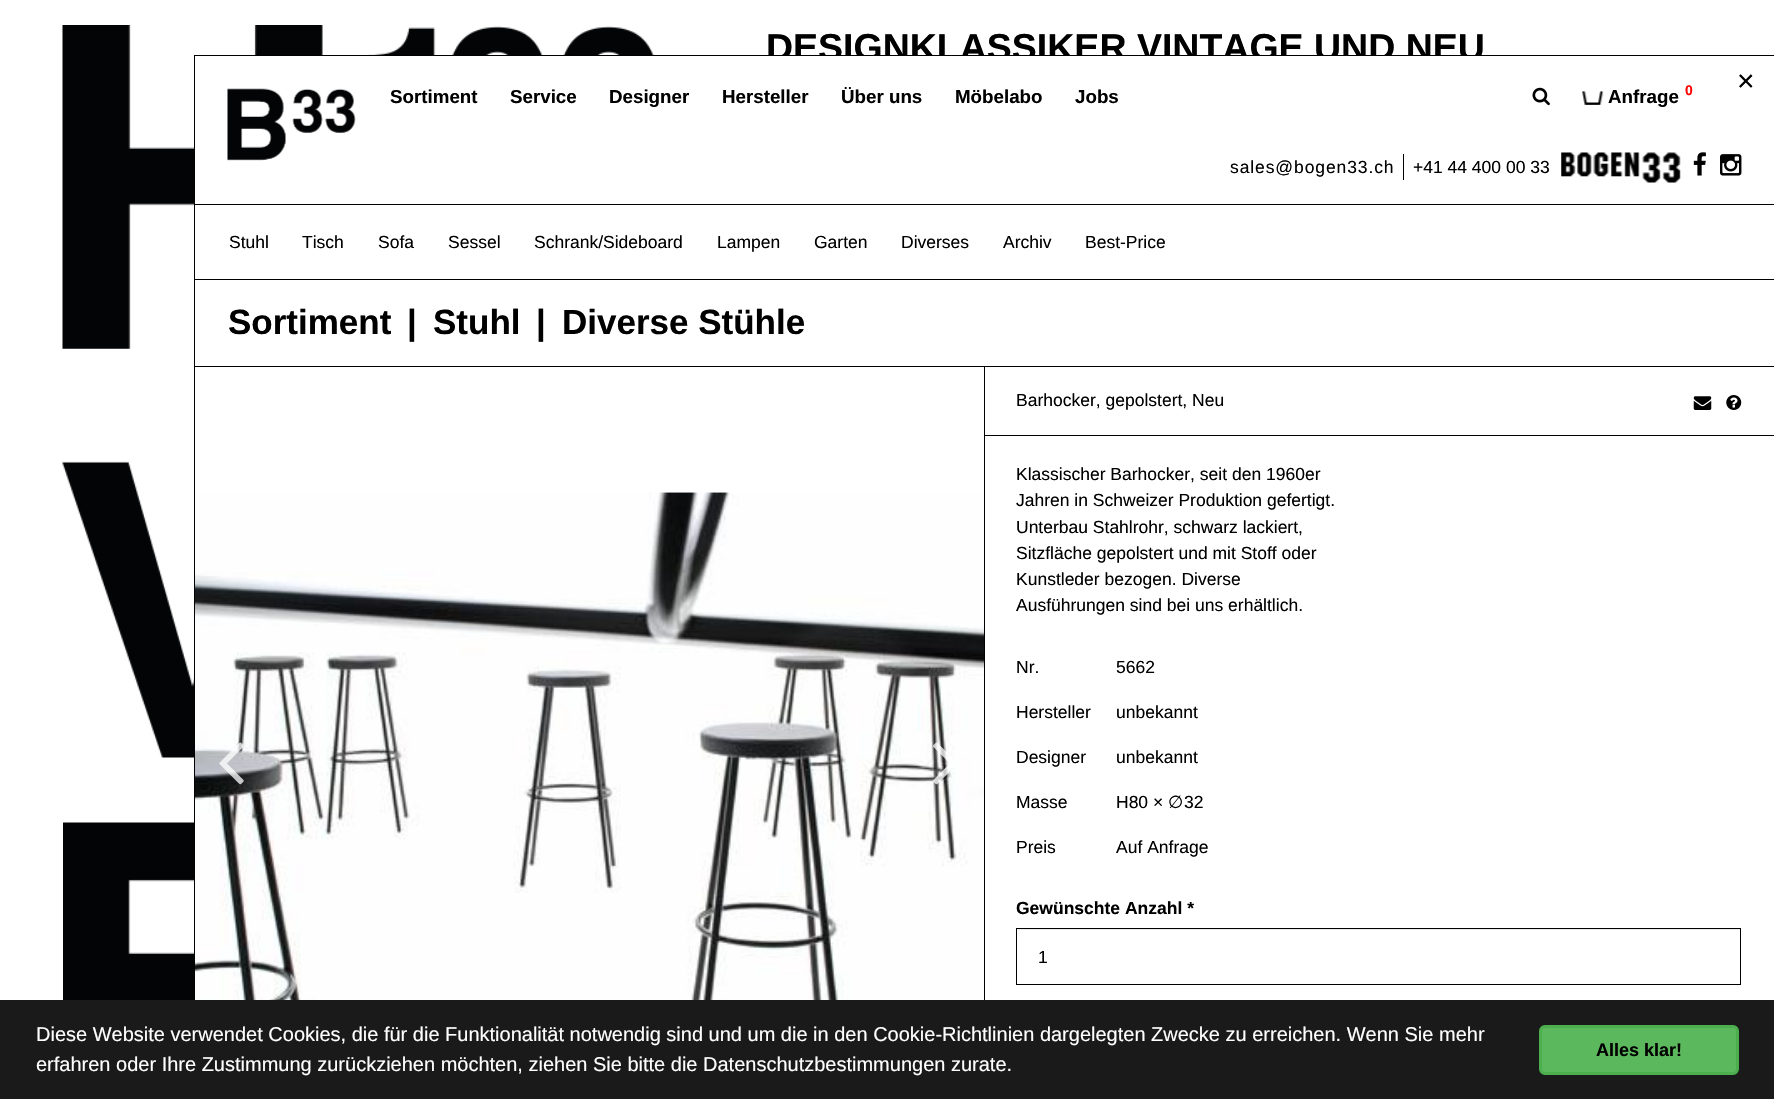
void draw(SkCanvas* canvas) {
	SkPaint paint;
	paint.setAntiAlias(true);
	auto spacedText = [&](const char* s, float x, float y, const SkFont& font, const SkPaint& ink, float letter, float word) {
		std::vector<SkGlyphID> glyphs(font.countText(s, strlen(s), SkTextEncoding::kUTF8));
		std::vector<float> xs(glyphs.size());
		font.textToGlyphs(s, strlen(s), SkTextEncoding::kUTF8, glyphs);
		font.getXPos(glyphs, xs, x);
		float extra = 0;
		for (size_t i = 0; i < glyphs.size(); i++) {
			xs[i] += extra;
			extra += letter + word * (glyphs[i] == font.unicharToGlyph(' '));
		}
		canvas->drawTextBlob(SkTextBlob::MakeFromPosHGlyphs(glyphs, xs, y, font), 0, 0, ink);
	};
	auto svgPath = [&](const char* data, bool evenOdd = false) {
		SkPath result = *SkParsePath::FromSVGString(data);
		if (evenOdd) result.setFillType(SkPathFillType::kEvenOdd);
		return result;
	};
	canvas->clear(0xffffffff);
	canvas->drawImageRect(SkImages::DeferredFromEncodedData(SkData::MakeFromFileName("img1.png")), SkRect::MakeXYWH(62, 25, 592, 324), SkSamplingOptions());
	SkFont f1(fontMgr->matchFamilyStyle("Liberation Sans", SkFontStyle::Bold()), 37.5);
	f1.setSubpixel(true);
	paint.setColor(0xff000000);
	canvas->drawString("DESIGNKLASSIKER VINTAGE UND NEU", 766, 60, f1, paint);
	canvas->drawImageRect(SkImages::DeferredFromEncodedData(SkData::MakeFromFileName("img2.png")), SkRect::MakeXYWH(62, 461, 132, 297), SkSamplingOptions());
	canvas->drawImageRect(SkImages::DeferredFromEncodedData(SkData::MakeFromFileName("img3.png")), SkRect::MakeXYWH(63, 822, 131, 178), SkSamplingOptions());
	paint.setColor(0xffffffff);
	canvas->drawRect(SkRect::MakeXYWH(195, 56, 1286, 148), paint);
	paint.setColor(0xff000000);
	canvas->drawRect(SkRect::MakeXYWH(194, 204, 1, 796), paint);
	paint.setStroke(true);
	paint.setStrokeWidth(1);
	canvas->drawRect(SkRect::MakeXYWH(194.5, 55.5, 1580, 149), paint);
	SkFont f2(fontMgr->matchFamilyStyle("Liberation Sans", SkFontStyle::Normal()), 30);
	f2.setSubpixel(true);
	paint.setStroke(false);
	canvas->drawString("×", 1737, 91, f2, paint);
	canvas->drawImageRect(SkImages::DeferredFromEncodedData(SkData::MakeFromFileName("img4.png")), SkRect::MakeXYWH(227, 88, 129, 73), SkSamplingOptions());
	SkFont f3(fontMgr->matchFamilyStyle("Liberation Sans", SkFontStyle::Bold()), 18.75);
	f3.setSubpixel(true);
	canvas->drawString("Sortiment", 390, 103, f3, paint);
	canvas->drawString("Service", 510, 103, f3, paint);
	canvas->drawString("Designer", 609, 103, f3, paint);
	canvas->drawString("Hersteller", 722, 103, f3, paint);
	canvas->drawString("Über uns", 841, 103, f3, paint);
	canvas->drawString("Möbelabo", 955, 103, f3, paint);
	canvas->drawString("Jobs", 1075, 103, f3, paint);
	canvas->drawImageRect(SkImages::DeferredFromEncodedData(SkData::MakeFromFileName("img5.png")), SkRect::MakeXYWH(1532, 87, 18, 19), SkSamplingOptions());
	canvas->drawImageRect(SkImages::DeferredFromEncodedData(SkData::MakeFromFileName("img6.png")), SkRect::MakeXYWH(1582, 91, 22, 14), SkSamplingOptions());
	canvas->drawString("Anfrage", 1608, 103, f3, paint);
	SkFont f4(fontMgr->matchFamilyStyle("Liberation Sans", SkFontStyle::Bold()), 14);
	f4.setSubpixel(true);
	paint.setColor(0xffff0000);
	canvas->drawString("0", 1685, 95, f4, paint);
	SkFont f5(fontMgr->matchFamilyStyle("Liberation Sans", SkFontStyle::Normal()), 17.5);
	f5.setSubpixel(true);
	paint.setColor(0xff000000);
	spacedText("sales@bogen33.ch", 1230, 173, f5, paint, 0.9, 0);
	canvas->drawRect(SkRect::MakeXYWH(1403, 154, 1, 26), paint);
	canvas->drawString("+41 44 400 00 33", 1413, 173, f5, paint);
	canvas->drawImageRect(SkImages::DeferredFromEncodedData(SkData::MakeFromFileName("img7.png")), SkRect::MakeXYWH(1561, 152, 120, 31), SkSamplingOptions());
	canvas->drawImageRect(SkImages::DeferredFromEncodedData(SkData::MakeFromFileName("img8.png")), SkRect::MakeXYWH(1693, 152, 13, 24), SkSamplingOptions());
	canvas->drawImageRect(SkImages::DeferredFromEncodedData(SkData::MakeFromFileName("img9.png")), SkRect::MakeXYWH(1720, 154, 22, 22), SkSamplingOptions());
	paint.setColor(0xffffffff);
	canvas->drawRect(SkRect::MakeXYWH(195, 205, 128, 144), paint);
	paint.setColor(0xff000000);
	canvas->drawRect(SkRect::MakeXYWH(195, 279, 1579, 1), paint);
	canvas->drawString("Stuhl", 229, 248, f5, paint);
	canvas->drawString("Tisch", 302, 248, f5, paint);
	canvas->drawString("Sofa", 378, 248, f5, paint);
	canvas->drawString("Sessel", 448, 248, f5, paint);
	canvas->drawString("Schrank/Sideboard", 534, 248, f5, paint);
	canvas->drawString("Lampen", 717, 248, f5, paint);
	canvas->drawString("Garten", 814, 248, f5, paint);
	canvas->drawString("Diverses", 901, 248, f5, paint);
	canvas->drawString("Archiv", 1003, 248, f5, paint);
	canvas->drawString("Best-Price", 1085, 248, f5, paint);
	SkFont f6(fontMgr->matchFamilyStyle("Liberation Sans", SkFontStyle::Bold()), 35);
	f6.setSubpixel(true);
	canvas->drawString("Sortiment", 228, 334, f6, paint);
	canvas->drawString("|", 407, 334, f6, paint);
	canvas->drawString("Stuhl", 433, 334, f6, paint);
	canvas->drawString("|", 536, 334, f6, paint);
	canvas->drawString("Diverse Stühle", 562, 334, f6, paint);
	canvas->drawPath(svgPath("M195 366H984V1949H195H985V366Z"), paint);
	canvas->drawRect(SkRect::MakeXYWH(195, 366, 1579, 1), paint);
	canvas->drawImageRect(SkImages::DeferredFromEncodedData(SkData::MakeFromFileName("img10.png")), SkRect::MakeXYWH(195, 492, 789, 508), SkSamplingOptions());
	canvas->drawImageRect(SkImages::DeferredFromEncodedData(SkData::MakeFromFileName("img11.png")), SkRect::MakeXYWH(219, 742, 25, 43), SkSamplingOptions());
	canvas->drawImageRect(SkImages::DeferredFromEncodedData(SkData::MakeFromFileName("img12.png")), SkRect::MakeXYWH(933, 742, 21, 43), SkSamplingOptions());
	canvas->drawRect(SkRect::MakeXYWH(984, 435, 790, 1), paint);
	canvas->drawString("Barhocker, gepolstert, Neu", 1016, 406, f5, paint);
	canvas->drawImageRect(SkImages::DeferredFromEncodedData(SkData::MakeFromFileName("img13.png")), SkRect::MakeXYWH(1693, 396, 19, 14), SkSamplingOptions());
	canvas->drawImageRect(SkImages::DeferredFromEncodedData(SkData::MakeFromFileName("img14.png")), SkRect::MakeXYWH(1726, 395, 16, 15), SkSamplingOptions());
	canvas->drawString("Klassischer Barhocker, seit den 1960er", 1016, 480, f5, paint);
	canvas->drawString("Jahren in Schweizer Produktion gefertigt.", 1016, 506, f5, paint);
	canvas->drawString("Unterbau Stahlrohr, schwarz lackiert,", 1016, 533, f5, paint);
	canvas->drawString("Sitzfläche gepolstert und mit Stoff oder", 1016, 559, f5, paint);
	canvas->drawString("Kunstleder bezogen. Diverse", 1016, 585, f5, paint);
	canvas->drawString("Ausführungen sind bei uns erhältlich.", 1016, 611, f5, paint);
	canvas->drawString("Nr.", 1016, 673, f5, paint);
	canvas->drawString("5662", 1116, 673, f5, paint);
	canvas->drawString("Hersteller", 1016, 718, f5, paint);
	canvas->drawString("unbekannt", 1116, 718, f5, paint);
	canvas->drawString("Designer", 1016, 763, f5, paint);
	canvas->drawString("unbekannt", 1116, 763, f5, paint);
	canvas->drawString("Masse", 1016, 808, f5, paint);
	canvas->drawString("H80 ×", 1116, 808, f5, paint);
	SkFont f7(fontMgr->matchFamilyStyle("DejaVu Sans", SkFontStyle::Normal()), 17.5);
	f7.setSubpixel(true);
	canvas->drawString("∅", 1168, 808, f7, paint);
	canvas->drawString("32", 1184, 808, f5, paint);
	canvas->drawString("Preis", 1016, 853, f5, paint);
	canvas->drawString("Auf Anfrage", 1116, 853, f5, paint);
	SkFont f8(fontMgr->matchFamilyStyle("Liberation Sans", SkFontStyle::Bold()), 17.5);
	f8.setSubpixel(true);
	canvas->drawString("Gewünschte Anzahl *", 1016, 914, f8, paint);
	paint.setColor(0xffececec);
	canvas->drawRect(SkRect::MakeXYWH(1018, 929, 722, 1), paint);
	paint.setStroke(true);
	paint.setColor(0xff000000);
	canvas->drawRect(SkRect::MakeXYWH(1016.5, 928.5, 724, 56), paint);
	paint.setStroke(false);
	canvas->drawString("1", 1038, 963, f5, paint);
	paint.setColor(0xff1a1a1a);
	canvas->drawRect(SkRect::MakeXYWH(0, 1000, 1774, 99), paint);
	SkFont f9(fontMgr->matchFamilyStyle("Liberation Sans", SkFontStyle::Normal()), 20);
	f9.setSubpixel(true);
	paint.setColor(0xffffffff);
	canvas->drawString("Diese Website verwendet Cookies, die für die Funktionalität notwendig sind und um die in den Cookie-Richtlinien dargelegten Zwecke zu erreichen. Wenn Sie mehr", 36, 1041, f9, paint);
	canvas->drawString("erfahren oder Ihre Zustimmung zurückziehen möchten, ziehen Sie bitte die Datenschutzbestimmungen zurate.", 36, 1071, f9, paint);
	paint.setColor(0xff5cb85c);
	canvas->drawRoundRect(SkRect::MakeXYWH(1540.5, 1026.5, 197, 47), 4.5, 4.5, paint);
	paint.setStroke(true);
	paint.setStrokeWidth(3);
	paint.setColor(0xff4cae4c);
	canvas->drawRoundRect(SkRect::MakeXYWH(1540.5, 1026.5, 197, 47), 4.5, 4.5, paint);
	SkFont f10(fontMgr->matchFamilyStyle("Liberation Sans", SkFontStyle::Bold()), 18);
	f10.setSubpixel(true);
	paint.setStroke(false);
	paint.setColor(0xff000000);
	canvas->drawString("Alles klar!", 1596, 1056, f10, paint);
}
